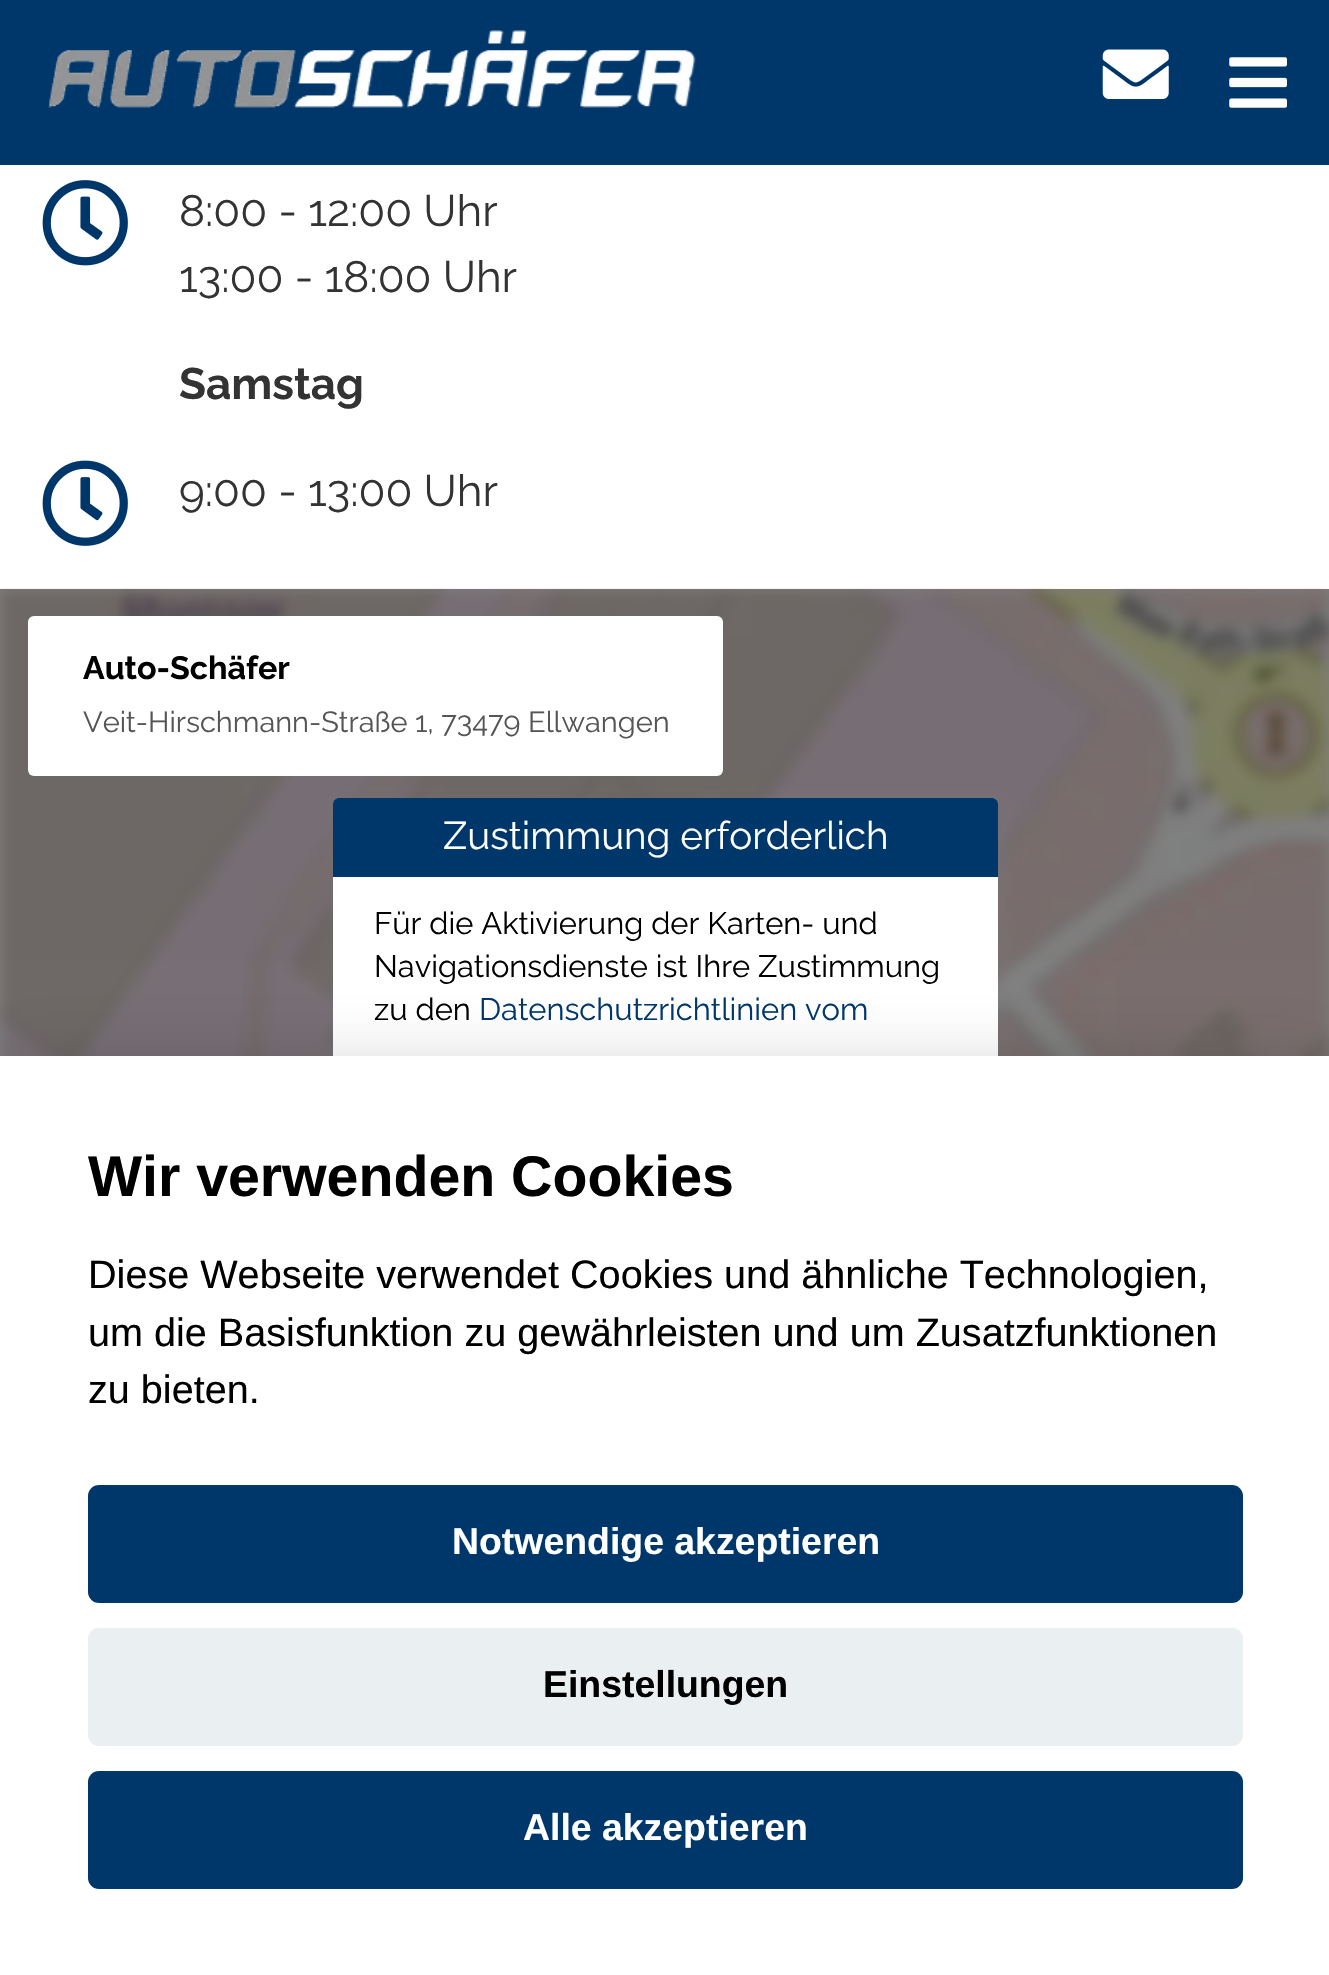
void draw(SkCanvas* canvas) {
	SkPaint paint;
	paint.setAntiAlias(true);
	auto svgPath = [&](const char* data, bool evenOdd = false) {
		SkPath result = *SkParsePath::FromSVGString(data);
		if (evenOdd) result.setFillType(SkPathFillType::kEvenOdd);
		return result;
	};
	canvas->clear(0xffffffff);
	paint.setColor(0xff00376b);
	canvas->drawRect(SkRect::MakeXYWH(0, 0, 1329, 165), paint);
	canvas->drawImageRect(SkImages::DeferredFromEncodedData(SkData::MakeFromFileName("img1.png")), SkRect::MakeXYWH(48, 30, 648, 78), SkSamplingOptions());
	canvas->drawImageRect(SkImages::DeferredFromEncodedData(SkData::MakeFromFileName("img2.png")), SkRect::MakeXYWH(1102, 49, 67, 50), SkSamplingOptions());
	canvas->drawImageRect(SkImages::DeferredFromEncodedData(SkData::MakeFromFileName("img3.png")), SkRect::MakeXYWH(1229, 57, 58, 51), SkSamplingOptions());
	canvas->drawImageRect(SkImages::DeferredFromEncodedData(SkData::MakeFromFileName("img4.png")), SkRect::MakeXYWH(42, 180, 86, 86), SkSamplingOptions());
	SkFont f1(fontMgr->matchFamilyStyle("Raleway", SkFontStyle::Normal()), 44);
	f1.setSubpixel(true);
	paint.setColor(0xff333333);
	canvas->drawString("8:00 - 12:00 Uhr", 179, 226, f1, paint);
	canvas->drawString("13:00 - 18:00 Uhr", 179, 292, f1, paint);
	SkFont f2(fontMgr->matchFamilyStyle("Raleway", SkFontStyle::Bold()), 44);
	f2.setSubpixel(true);
	canvas->drawString("Samstag", 179, 399, f2, paint);
	canvas->drawImageRect(SkImages::DeferredFromEncodedData(SkData::MakeFromFileName("img5.png")), SkRect::MakeXYWH(42, 460, 86, 86), SkSamplingOptions());
	canvas->drawString("9:00 - 13:00 Uhr", 179, 506, f1, paint);
	paint.setColor(0xff808080);
	canvas->drawRect(SkRect::MakeXYWH(0, 589, 1329, 467), paint);
	canvas->drawImageRect(SkImages::DeferredFromEncodedData(SkData::MakeFromFileName("img6.png")), SkRect::MakeXYWH(0, 588, 1329, 468), SkSamplingOptions());
	paint.setColor(0xffffffff);
	canvas->drawRoundRect(SkRect::MakeXYWH(28, 616, 695, 160), 6, 6, paint);
	SkFont f3(fontMgr->matchFamilyStyle("Raleway", SkFontStyle::Bold()), 32.25);
	f3.setSubpixel(true);
	paint.setColor(0xff000000);
	canvas->drawString("Auto-Schäfer", 83, 679, f3, paint);
	SkFont f4(fontMgr->matchFamilyStyle("Raleway", SkFontStyle::Normal()), 29);
	f4.setSubpixel(true);
	paint.setColor(0xff555555);
	canvas->drawString("Veit-Hirschmann-Straße 1, 73479 Ellwangen", 83, 732, f4, paint);
	canvas->save();
	canvas->clipPath(svgPath("M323 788H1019V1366H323ZM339 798H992C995.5 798 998 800.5 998 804V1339C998 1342.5 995.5 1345 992 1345H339C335.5 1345 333 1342.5 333 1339V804C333 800.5 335.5 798 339 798Z", true), true);
	paint.setColor(0x33787878);
	paint.setMaskFilter(SkMaskFilter::MakeBlur(kNormal_SkBlurStyle, 3));
	canvas->drawRoundRect(SkRect::MakeXYWH(333, 798, 676, 558), 11, 11, paint);
	paint.setMaskFilter(nullptr);
	canvas->restore();
	paint.setColor(0xffffffff);
	canvas->drawRoundRect(SkRect::MakeXYWH(333, 798, 665, 547), 6, 6, paint);
	paint.setColor(0xff00376b);
	canvas->drawPath(svgPath("M339 798H992C995.5 798 998 800.5 998 804V877H333V804C333 800.5 335.5 798 339 798Z"), paint);
	SkFont f5(fontMgr->matchFamilyStyle("Raleway", SkFontStyle::Normal()), 38.6);
	f5.setSubpixel(true);
	paint.setColor(0xffffffff);
	canvas->drawString("Zustimmung erforderlich", 443, 849, f5, paint);
	SkFont f6(fontMgr->matchFamilyStyle("Raleway", SkFontStyle::Normal()), 30.9);
	f6.setSubpixel(true);
	paint.setColor(0xff000000);
	canvas->drawString("Für die Aktivierung der Karten- und", 374, 934, f6, paint);
	canvas->drawString("Navigationsdienste ist Ihre Zustimmung", 374, 977, f6, paint);
	canvas->drawString("zu den", 374, 1020, f6, paint);
	paint.setColor(0xff00376b);
	canvas->drawString("Datenschutzrichtlinien vom", 479, 1020, f6, paint);
	paint.setColor(0x47020203);
	paint.setMaskFilter(SkMaskFilter::MakeBlur(kNormal_SkBlurStyle, 41));
	canvas->drawRect(SkRect::MakeXYWH(0, 1084, 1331, 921), paint);
	paint.setMaskFilter(nullptr);
	paint.setColor(0xffffffff);
	canvas->drawRect(SkRect::MakeXYWH(0, 1056, 1329, 919), paint);
	SkFont f7(fontMgr->matchFamilyStyle("Liberation Sans", SkFontStyle::Bold()), 57.25);
	f7.setSubpixel(true);
	paint.setColor(0xff000000);
	canvas->drawString("Wir verwenden Cookies", 88, 1196, f7, paint);
	SkFont f8(fontMgr->matchFamilyStyle("Liberation Sans", SkFontStyle::Normal()), 39.6);
	f8.setSubpixel(true);
	canvas->drawString("Diese Webseite verwendet Cookies und ähnliche Technologien,", 88, 1288, f8, paint);
	canvas->drawString("um die Basisfunktion zu gewährleisten und um Zusatzfunktionen", 88, 1346, f8, paint);
	canvas->drawString("zu bieten.", 88, 1403, f8, paint);
	paint.setColor(0xff00376b);
	canvas->drawRoundRect(SkRect::MakeXYWH(88, 1485, 1155, 118), 11, 11, paint);
	SkFont f9(fontMgr->matchFamilyStyle("Liberation Sans", SkFontStyle::Bold()), 37.4);
	f9.setSubpixel(true);
	paint.setColor(0xffffffff);
	canvas->drawString("Notwendige akzeptieren", 452, 1554, f9, paint);
	paint.setColor(0xffeaeff2);
	canvas->drawRoundRect(SkRect::MakeXYWH(88, 1628, 1155, 118), 11, 11, paint);
	paint.setColor(0xff000000);
	canvas->drawString("Einstellungen", 543, 1697, f9, paint);
	paint.setColor(0xff00376b);
	canvas->drawRoundRect(SkRect::MakeXYWH(88, 1771, 1155, 118), 11, 11, paint);
	paint.setColor(0xffffffff);
	canvas->drawString("Alle akzeptieren", 523, 1840, f9, paint);
}
